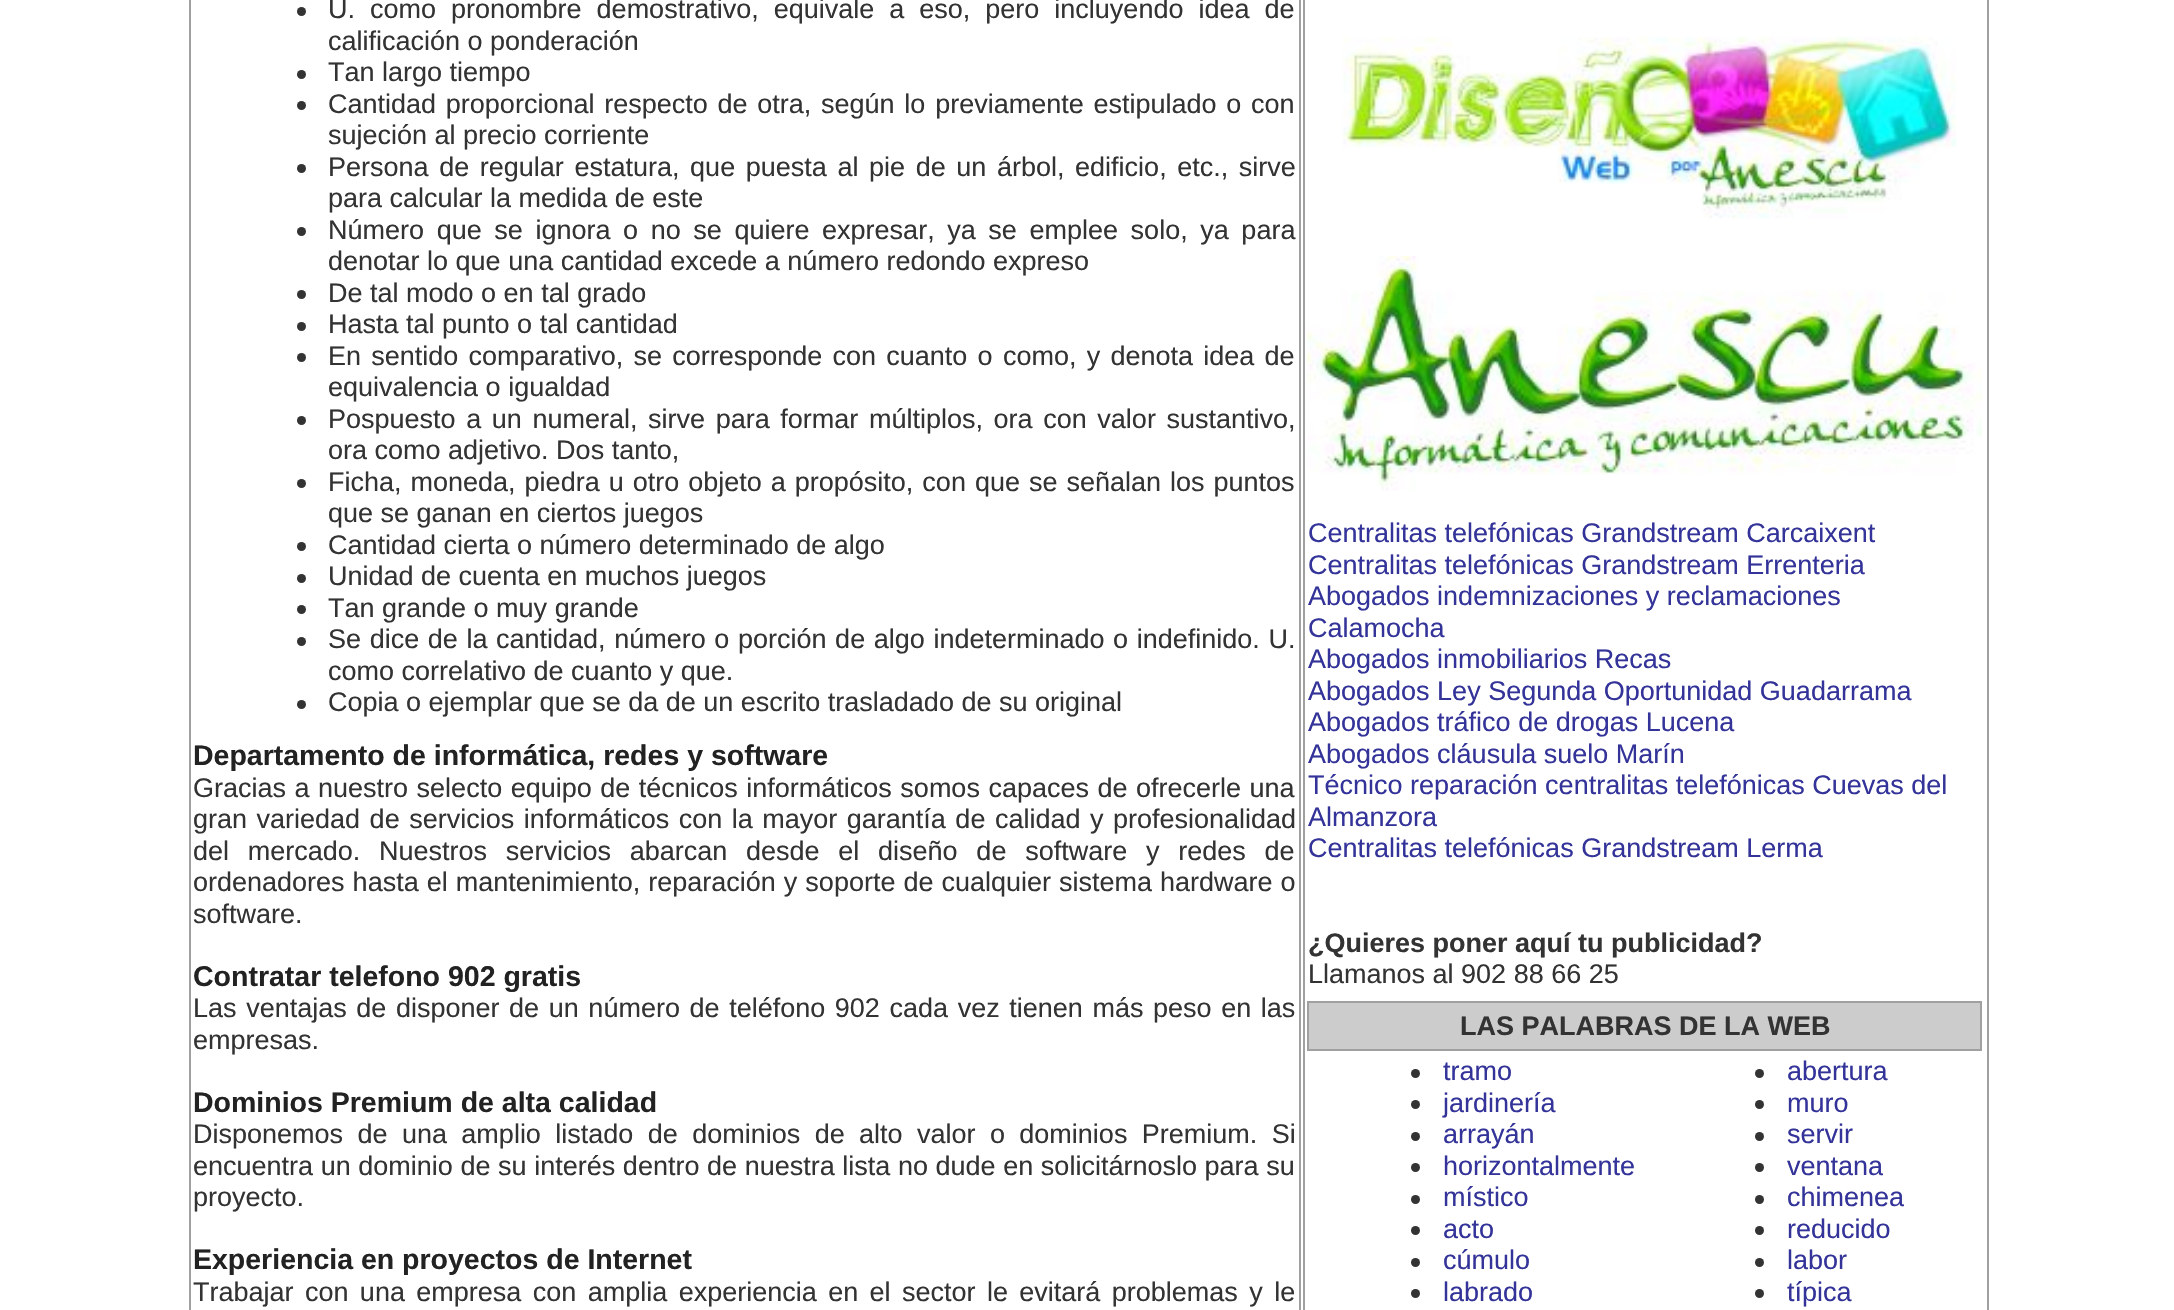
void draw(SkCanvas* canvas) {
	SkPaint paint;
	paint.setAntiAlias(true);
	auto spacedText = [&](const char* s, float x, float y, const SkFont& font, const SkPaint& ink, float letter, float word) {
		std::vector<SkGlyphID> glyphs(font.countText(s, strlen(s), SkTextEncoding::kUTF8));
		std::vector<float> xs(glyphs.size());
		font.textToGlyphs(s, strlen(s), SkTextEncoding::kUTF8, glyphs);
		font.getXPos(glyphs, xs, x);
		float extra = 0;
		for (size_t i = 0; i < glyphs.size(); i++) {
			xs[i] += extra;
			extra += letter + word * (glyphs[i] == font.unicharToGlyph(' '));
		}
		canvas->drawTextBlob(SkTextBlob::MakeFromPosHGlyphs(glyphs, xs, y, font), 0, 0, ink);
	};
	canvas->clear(0xffffffff);
	paint.setStroke(true);
	paint.setStrokeWidth(2);
	paint.setColor(0xffa0a0a0);
	canvas->drawRect(SkRect::MakeXYWH(190, -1, 1110, 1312), paint);
	paint.setStroke(false);
	paint.setColor(0xff333333);
	canvas->drawCircle(301.5, 11.5, 4.5, paint);
	SkFont f1(fontMgr->matchFamilyStyle("Liberation Sans", SkFontStyle::Normal()), 27);
	f1.setSubpixel(true);
	spacedText("U. como pronombre demostrativo, equivale a eso, pero incluyendo idea de", 328, 18, f1, paint, 0, 7.5);
	canvas->drawString("calificación o ponderación", 328, 50, f1, paint);
	canvas->drawCircle(301.5, 74.5, 4.5, paint);
	canvas->drawString("Tan largo tiempo", 328, 81, f1, paint);
	canvas->drawCircle(301.5, 105.5, 4.5, paint);
	spacedText("Cantidad proporcional respecto de otra, según lo previamente estipulado o con", 328, 113, f1, paint, 0, 2.25);
	canvas->drawString("sujeción al precio corriente", 328, 144, f1, paint);
	canvas->drawCircle(301.5, 168.5, 4.5, paint);
	spacedText("Persona de regular estatura, que puesta al pie de un árbol, edificio, etc., sirve", 328, 176, f1, paint, 0, 3.1);
	canvas->drawString("para calcular la medida de este", 328, 207, f1, paint);
	canvas->drawCircle(301.5, 231.5, 4.5, paint);
	spacedText("Número que se ignora o no se quiere expresar, ya se emplee solo, ya para", 328, 239, f1, paint, 0, 5.1);
	canvas->drawString("denotar lo que una cantidad excede a número redondo expreso", 328, 270, f1, paint);
	canvas->drawCircle(301.5, 294.5, 4.5, paint);
	canvas->drawString("De tal modo o en tal grado", 328, 302, f1, paint);
	canvas->drawCircle(301.5, 326.5, 4.5, paint);
	canvas->drawString("Hasta tal punto o tal cantidad", 328, 333, f1, paint);
	canvas->drawCircle(301.5, 357.5, 4.5, paint);
	spacedText("En sentido comparativo, se corresponde con cuanto o como, y denota idea de", 328, 365, f1, paint, 0, 2.75);
	canvas->drawString("equivalencia o igualdad", 328, 396, f1, paint);
	canvas->drawCircle(301.5, 420.5, 4.5, paint);
	spacedText("Pospuesto a un numeral, sirve para formar múltiplos, ora con valor sustantivo,", 328, 428, f1, paint, 0, 3.1);
	canvas->drawString("ora como adjetivo. Dos tanto,", 328, 459, f1, paint);
	canvas->drawCircle(301.5, 483.5, 4.5, paint);
	spacedText("Ficha, moneda, piedra u otro objeto a propósito, con que se señalan los puntos", 328, 491, f1, paint, 0, 1.5);
	canvas->drawString("que se ganan en ciertos juegos", 328, 522, f1, paint);
	canvas->drawCircle(301.5, 546.5, 4.5, paint);
	canvas->drawString("Cantidad cierta o número determinado de algo", 328, 554, f1, paint);
	canvas->drawCircle(301.5, 578.5, 4.5, paint);
	canvas->drawString("Unidad de cuenta en muchos juegos", 328, 585, f1, paint);
	canvas->drawCircle(301.5, 609.5, 4.5, paint);
	canvas->drawString("Tan grande o muy grande", 328, 617, f1, paint);
	canvas->drawCircle(301.5, 641.5, 4.5, paint);
	spacedText("Se dice de la cantidad, número o porción de algo indeterminado o indefinido. U.", 328, 648, f1, paint, 0, 1.1);
	canvas->drawString("como correlativo de cuanto y que.", 328, 680, f1, paint);
	canvas->drawCircle(301.5, 704.5, 4.5, paint);
	canvas->drawString("Copia o ejemplar que se da de un escrito trasladado de su original", 328, 711, f1, paint);
	SkFont f2(fontMgr->matchFamilyStyle("Liberation Sans", SkFontStyle::Bold()), 28.5);
	f2.setSubpixel(true);
	paint.setColor(0xff222222);
	canvas->drawString("Departamento de informática, redes y software", 193, 765, f2, paint);
	paint.setColor(0xff333333);
	spacedText("Gracias a nuestro selecto equipo de técnicos informáticos somos capaces de ofrecerle una", 193, 797, f1, paint, 0, 1);
	spacedText("gran variedad de servicios informáticos con la mayor garantía de calidad y profesionalidad", 193, 828, f1, paint, 0, 2);
	spacedText("del mercado. Nuestros servicios abarcan desde el diseño de software y redes de", 193, 860, f1, paint, 0, 11.25);
	spacedText("ordenadores hasta el mantenimiento, reparación y soporte de cualquier sistema hardware o", 193, 891, f1, paint, 0, 0.5);
	canvas->drawString("software.", 193, 923, f1, paint);
	paint.setColor(0xff222222);
	canvas->drawString("Contratar telefono 902 gratis", 193, 986, f2, paint);
	paint.setColor(0xff333333);
	spacedText("Las ventajas de disponer de un número de teléfono 902 cada vez tienen más peso en las", 193, 1017, f1, paint, 0, 2.1);
	canvas->drawString("empresas.", 193, 1049, f1, paint);
	paint.setColor(0xff222222);
	canvas->drawString("Dominios Premium de alta calidad", 193, 1112, f2, paint);
	paint.setColor(0xff333333);
	spacedText("Disponemos de una amplio listado de dominios de alto valor o dominios Premium. Si", 193, 1143, f1, paint, 0, 6.9);
	spacedText("encuentra un dominio de su interés dentro de nuestra lista no dude en solicitárnoslo para su", 193, 1175, f1, paint, 0, 0.1);
	canvas->drawString("proyecto.", 193, 1206, f1, paint);
	paint.setColor(0xff222222);
	canvas->drawString("Experiencia en proyectos de Internet", 193, 1269, f2, paint);
	paint.setColor(0xff333333);
	spacedText("Trabajar con una empresa con amplia experiencia en el sector le evitará problemas y le", 193, 1301, f1, paint, 0, 3.9);
	paint.setStroke(true);
	paint.setColor(0xffa0a0a0);
	canvas->drawRect(SkRect::MakeXYWH(1304, -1, 684, 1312), paint);
	canvas->drawImageRect(SkImages::DeferredFromEncodedData(SkData::MakeFromFileName("img1.png")), SkRect::MakeXYWH(1342, 36, 615, 183), SkSamplingOptions());
	canvas->drawImageRect(SkImages::DeferredFromEncodedData(SkData::MakeFromFileName("img2.png")), SkRect::MakeXYWH(1307, 256, 675, 235), SkSamplingOptions());
	paint.setStroke(false);
	paint.setColor(0xff333399);
	canvas->drawString("Centralitas telefónicas Grandstream Carcaixent", 1308, 542, f1, paint);
	canvas->drawString("Centralitas telefónicas Grandstream Errenteria", 1308, 574, f1, paint);
	canvas->drawString("Abogados indemnizaciones y reclamaciones", 1308, 605, f1, paint);
	canvas->drawString("Calamocha", 1308, 637, f1, paint);
	canvas->drawString("Abogados inmobiliarios Recas", 1308, 668, f1, paint);
	canvas->drawString("Abogados Ley Segunda Oportunidad Guadarrama", 1308, 700, f1, paint);
	canvas->drawString("Abogados tráfico de drogas Lucena", 1308, 731, f1, paint);
	canvas->drawString("Abogados cláusula suelo Marín", 1308, 763, f1, paint);
	canvas->drawString("Técnico reparación centralitas telefónicas Cuevas del", 1308, 794, f1, paint);
	canvas->drawString("Almanzora", 1308, 826, f1, paint);
	canvas->drawString("Centralitas telefónicas Grandstream Lerma", 1308, 857, f1, paint);
	SkFont f3(fontMgr->matchFamilyStyle("Liberation Sans", SkFontStyle::Bold()), 27);
	f3.setSubpixel(true);
	paint.setColor(0xff333333);
	canvas->drawString("¿Quieres poner aquí tu publicidad?", 1308, 952, f3, paint);
	canvas->drawString("Llamanos al 902 88 66 25", 1308, 983, f1, paint);
	paint.setColor(0xffcccccc);
	canvas->drawRect(SkRect::MakeXYWH(1308, 1002, 673, 48), paint);
	paint.setStroke(true);
	paint.setColor(0xffa0a0a0);
	canvas->drawRect(SkRect::MakeXYWH(1308, 1002, 673, 48), paint);
	paint.setStroke(false);
	paint.setColor(0xff333333);
	canvas->drawString("LAS PALABRAS DE LA WEB", 1460, 1035, f3, paint);
	canvas->drawCircle(1415.5, 1073.5, 4.5, paint);
	paint.setColor(0xff333399);
	canvas->drawString("tramo", 1443, 1080, f1, paint);
	paint.setColor(0xff333333);
	canvas->drawCircle(1415.5, 1104.5, 4.5, paint);
	paint.setColor(0xff333399);
	canvas->drawString("jardinería", 1443, 1112, f1, paint);
	paint.setColor(0xff333333);
	canvas->drawCircle(1415.5, 1136.5, 4.5, paint);
	paint.setColor(0xff333399);
	canvas->drawString("arrayán", 1443, 1143, f1, paint);
	paint.setColor(0xff333333);
	canvas->drawCircle(1415.5, 1167.5, 4.5, paint);
	paint.setColor(0xff333399);
	canvas->drawString("horizontalmente", 1443, 1175, f1, paint);
	paint.setColor(0xff333333);
	canvas->drawCircle(1415.5, 1199.5, 4.5, paint);
	paint.setColor(0xff333399);
	canvas->drawString("místico", 1443, 1206, f1, paint);
	paint.setColor(0xff333333);
	canvas->drawCircle(1415.5, 1230.5, 4.5, paint);
	paint.setColor(0xff333399);
	canvas->drawString("acto", 1443, 1238, f1, paint);
	paint.setColor(0xff333333);
	canvas->drawCircle(1415.5, 1262.5, 4.5, paint);
	paint.setColor(0xff333399);
	canvas->drawString("cúmulo", 1443, 1269, f1, paint);
	paint.setColor(0xff333333);
	canvas->drawCircle(1415.5, 1293.5, 4.5, paint);
	paint.setColor(0xff333399);
	canvas->drawString("labrado", 1443, 1301, f1, paint);
	paint.setColor(0xff333333);
	canvas->drawCircle(1759.5, 1073.5, 4.5, paint);
	paint.setColor(0xff333399);
	canvas->drawString("abertura", 1787, 1080, f1, paint);
	paint.setColor(0xff333333);
	canvas->drawCircle(1759.5, 1104.5, 4.5, paint);
	paint.setColor(0xff333399);
	canvas->drawString("muro", 1787, 1112, f1, paint);
	paint.setColor(0xff333333);
	canvas->drawCircle(1759.5, 1136.5, 4.5, paint);
	paint.setColor(0xff333399);
	canvas->drawString("servir", 1787, 1143, f1, paint);
	paint.setColor(0xff333333);
	canvas->drawCircle(1759.5, 1167.5, 4.5, paint);
	paint.setColor(0xff333399);
	canvas->drawString("ventana", 1787, 1175, f1, paint);
	paint.setColor(0xff333333);
	canvas->drawCircle(1759.5, 1199.5, 4.5, paint);
	paint.setColor(0xff333399);
	canvas->drawString("chimenea", 1787, 1206, f1, paint);
	paint.setColor(0xff333333);
	canvas->drawCircle(1759.5, 1230.5, 4.5, paint);
	paint.setColor(0xff333399);
	canvas->drawString("reducido", 1787, 1238, f1, paint);
	paint.setColor(0xff333333);
	canvas->drawCircle(1759.5, 1262.5, 4.5, paint);
	paint.setColor(0xff333399);
	canvas->drawString("labor", 1787, 1269, f1, paint);
	paint.setColor(0xff333333);
	canvas->drawCircle(1759.5, 1293.5, 4.5, paint);
	paint.setColor(0xff333399);
	canvas->drawString("típica", 1787, 1301, f1, paint);
}
